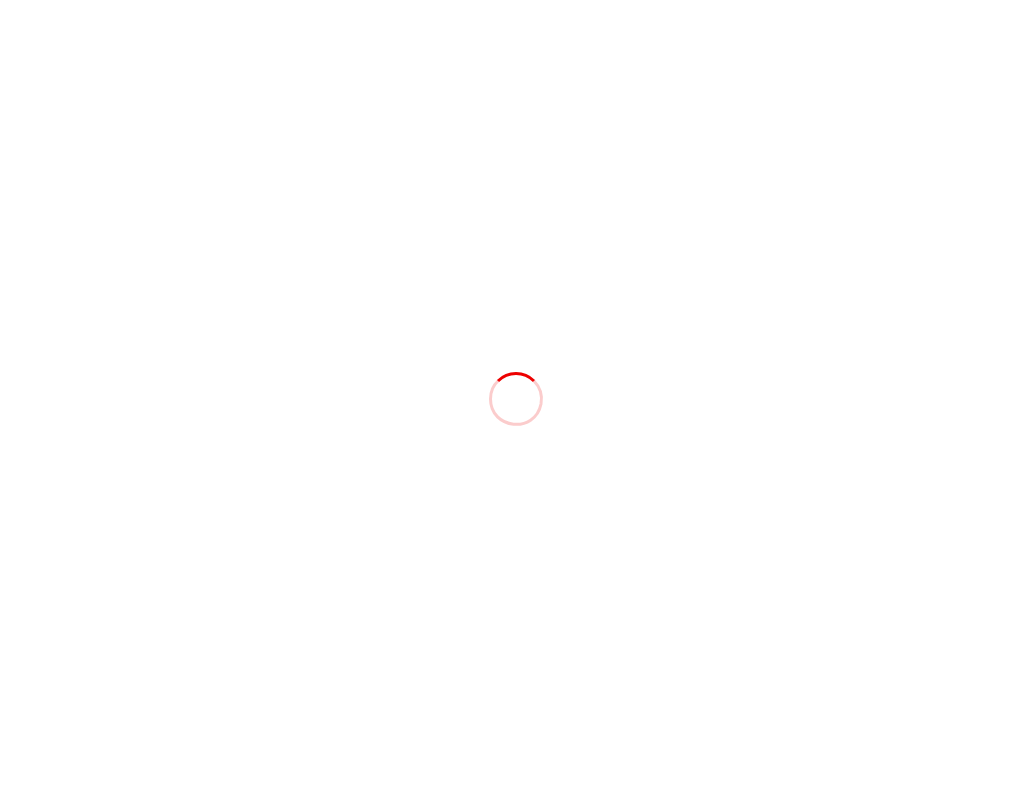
void draw(SkCanvas* canvas) {
	SkPaint paint;
	paint.setAntiAlias(true);
	auto svgPath = [&](const char* data, bool evenOdd = false) {
		SkPath result = *SkParsePath::FromSVGString(data);
		if (evenOdd) result.setFillType(SkPathFillType::kEvenOdd);
		return result;
	};
	canvas->clear(0xffffffff);
	paint.setStroke(true);
	paint.setStrokeWidth(3);
	paint.setColor(0xffed0000);
	canvas->drawPath(svgPath("M498 381C508 371 524 371 534 381"), paint);
	paint.setColor(0x33ed0000);
	canvas->drawPath(svgPath("M534 381C540 387 542.5 395.5 541 404C535 434 490.5 429.5 490.5 399C490.5 392.5 493 385.5 498 381"), paint);
}
